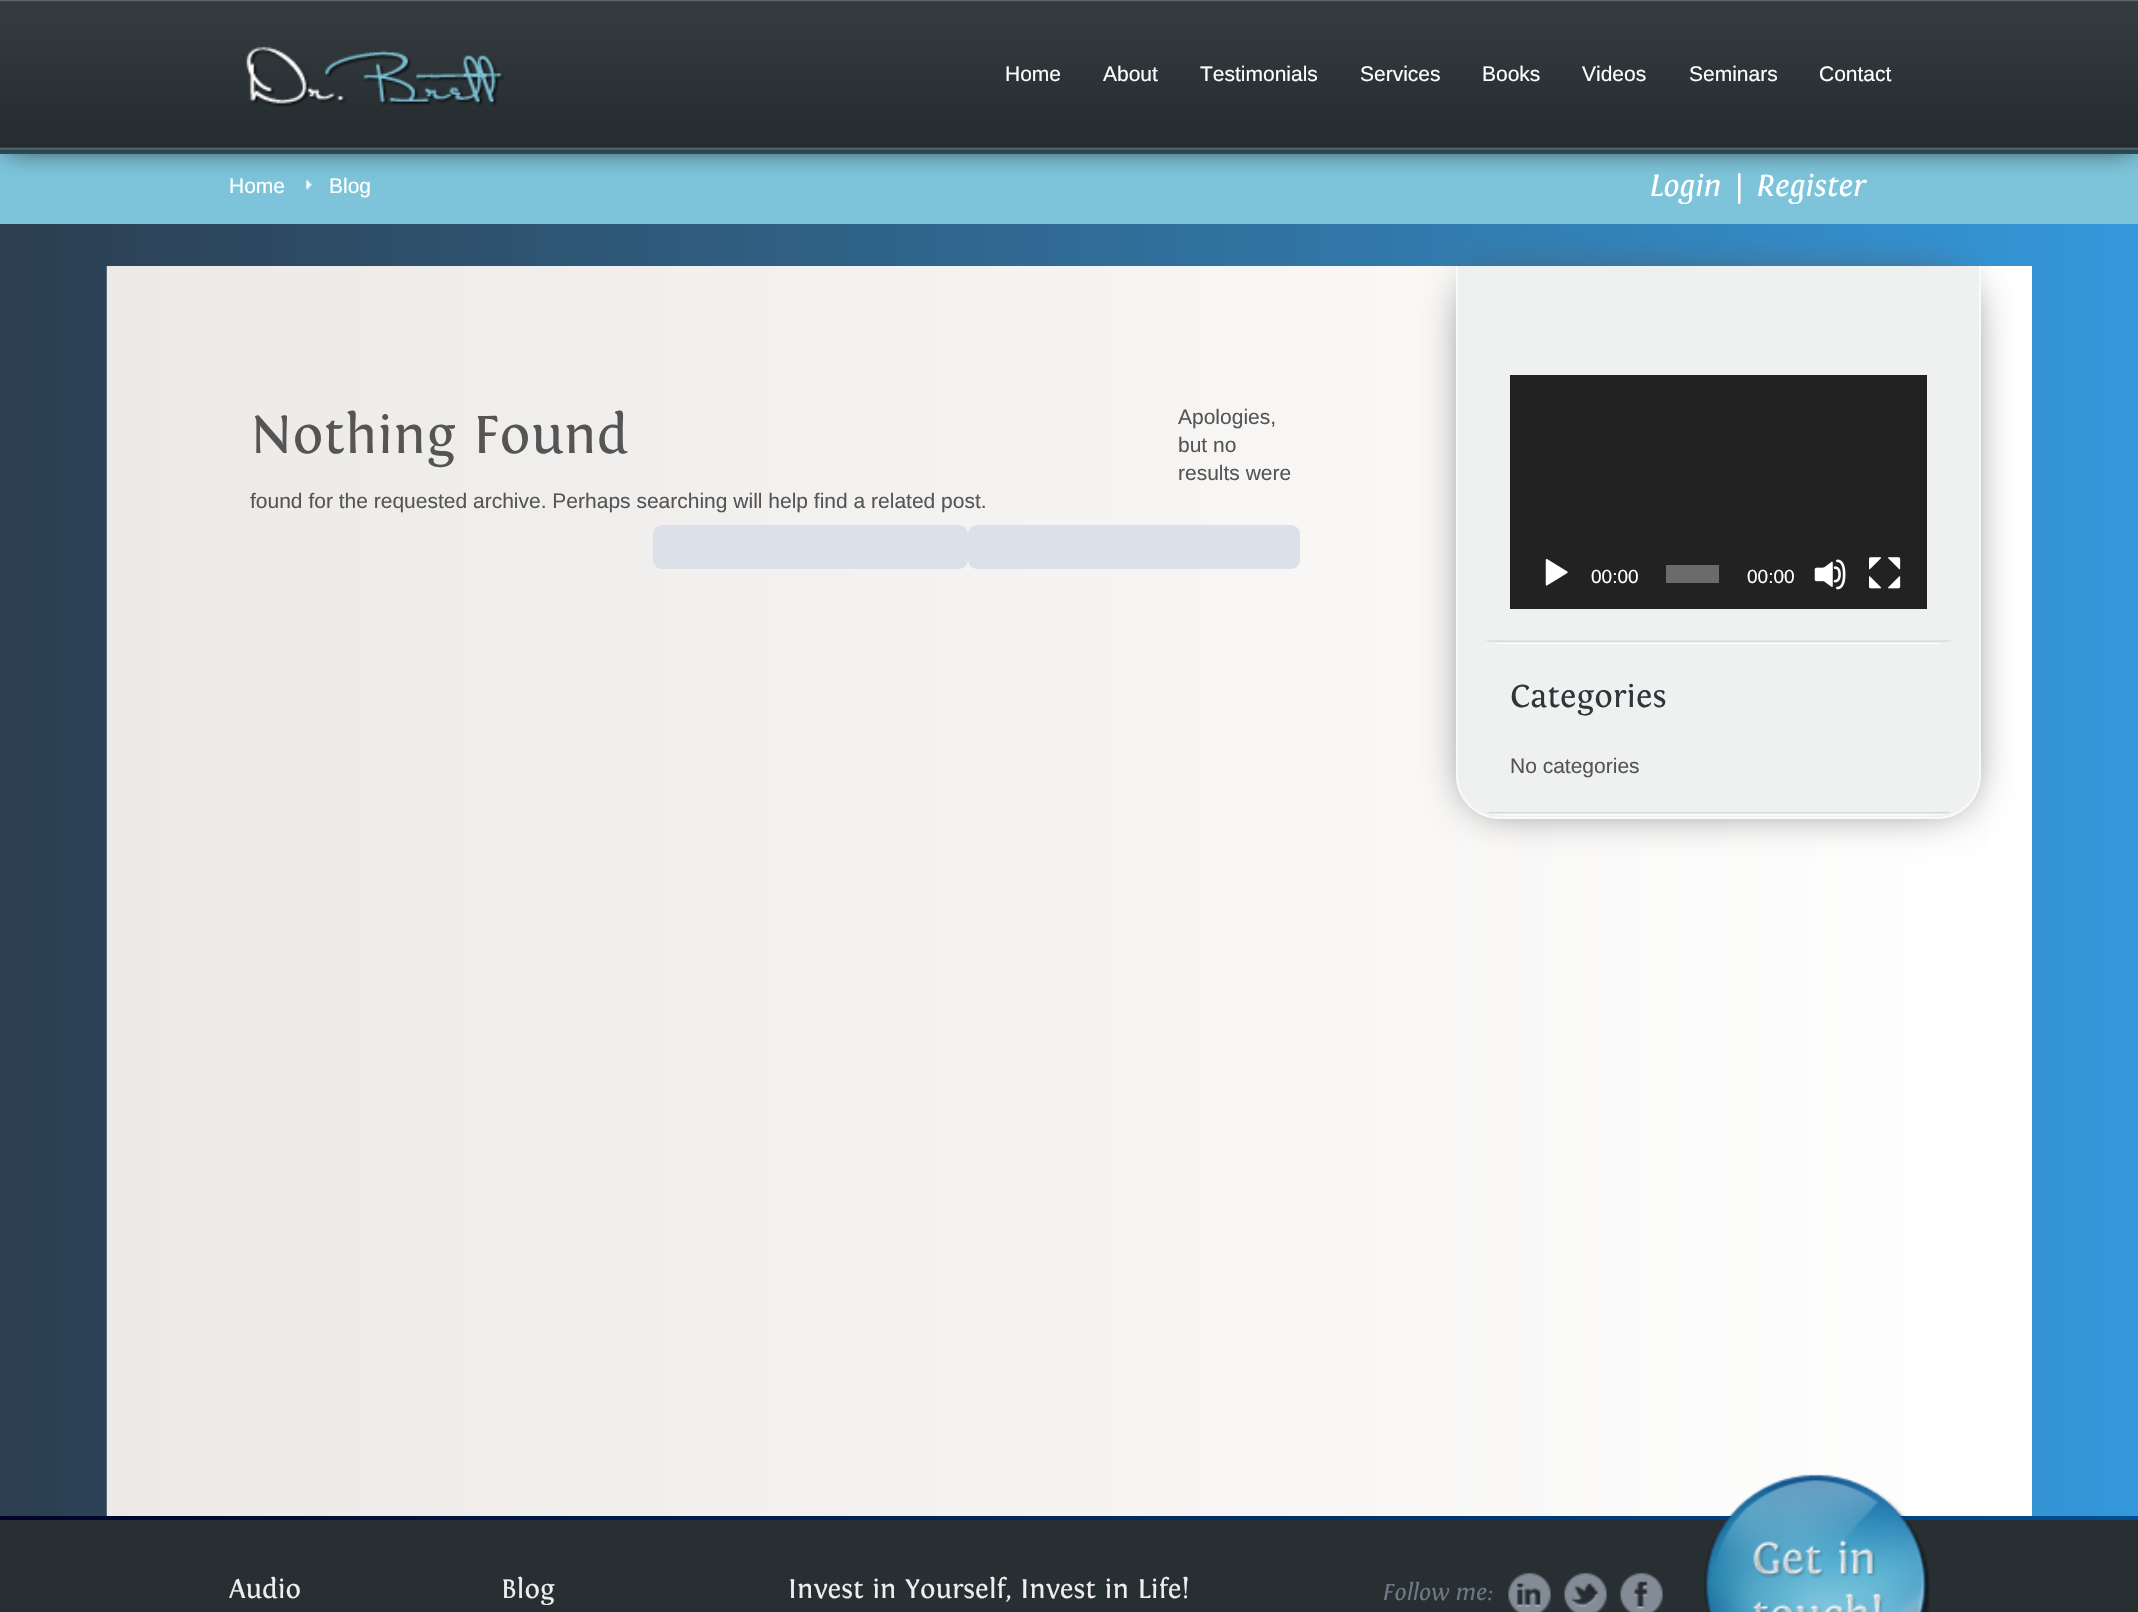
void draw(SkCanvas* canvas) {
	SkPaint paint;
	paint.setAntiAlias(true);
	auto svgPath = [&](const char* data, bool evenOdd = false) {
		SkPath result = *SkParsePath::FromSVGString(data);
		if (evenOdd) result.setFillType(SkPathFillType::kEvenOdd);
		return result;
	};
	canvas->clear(0xffffffff);
	{
		const SkColor colors[] = {0xff000428, 0xff004e92};
		const float stops[] = {0, 1};
		const SkPoint ends[] = {{0, 1144}, {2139, 1144}};
		paint.setShader(SkGradientShader::MakeLinear(ends, colors, stops, 2, SkTileMode::kClamp));
		paint.setAlpha(255);
	}
	canvas->drawRect(SkRect::MakeXYWH(0, 1516, 2138, 4), paint);
	{
		const SkColor colors[] = {0xff2c3e50, 0xff3498db};
		const float stops[] = {0, 1};
		const SkPoint ends[] = {{0, 860}, {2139, 860}};
		paint.setShader(SkGradientShader::MakeLinear(ends, colors, stops, 2, SkTileMode::kClamp));
		paint.setAlpha(255);
	}
	canvas->drawRect(SkRect::MakeXYWH(0, 224, 2138, 1292), paint);
	{
		const SkColor colors[] = {0xffece9e6, 0xffffffff};
		const float stops[] = {0, 1};
		const SkPoint ends[] = {{107, 891}, {2032, 891}};
		paint.setShader(SkGradientShader::MakeLinear(ends, colors, stops, 2, SkTileMode::kClamp));
		paint.setAlpha(255);
	}
	canvas->drawRect(SkRect::MakeXYWH(107, 266, 1925, 1250), paint);
	paint.setShader(nullptr);
	paint.setColor(0xff535353);
	paint.setMaskFilter(SkMaskFilter::MakeBlur(kNormal_SkBlurStyle, 22));
	canvas->drawRoundRect(SkRect::MakeXYWH(1470, 280, 497, 525), 30, 30, paint);
	paint.setMaskFilter(nullptr);
	paint.setColor(0xff7dc4da);
	canvas->drawRect(SkRect::MakeXYWH(0, 154, 2138, 70), paint);
	canvas->drawImageRect(SkImages::DeferredFromEncodedData(SkData::MakeFromFileName("img3.png")), SkRect::MakeXYWH(305, 179, 7, 11), SkSamplingOptions());
	paint.setColor(0xff111111);
	paint.setMaskFilter(SkMaskFilter::MakeBlur(kNormal_SkBlurStyle, 13));
	canvas->drawRect(SkRect::MakeXYWH(7, 7, 2125, 140), paint);
	paint.setMaskFilter(nullptr);
	canvas->drawImageRect(SkImages::DeferredFromEncodedData(SkData::MakeFromFileName("img1.png")), SkRect::MakeXYWH(0, 0, 2138, 154), SkSamplingOptions());
	canvas->drawImageRect(SkImages::DeferredFromEncodedData(SkData::MakeFromFileName("img2.png")), SkRect::MakeXYWH(246, 46, 258, 61), SkSamplingOptions());
	SkFont f1(fontMgr->matchFamilyStyle("Liberation Sans", SkFontStyle::Normal()), 21);
	f1.setSubpixel(true);
	paint.setColor(0xffffffff);
	canvas->drawString("Home", 1005, 81, f1, paint);
	canvas->drawString("About", 1103, 81, f1, paint);
	canvas->drawString("Testimonials", 1200, 81, f1, paint);
	canvas->drawString("Services", 1360, 81, f1, paint);
	canvas->drawString("Books", 1482, 81, f1, paint);
	canvas->drawString("Videos", 1582, 81, f1, paint);
	canvas->drawString("Seminars", 1689, 81, f1, paint);
	canvas->drawString("Contact", 1819, 81, f1, paint);
	canvas->drawString("Home", 229, 193, f1, paint);
	canvas->drawString("Blog", 329, 193, f1, paint);
	SkFont f2(fontMgr->matchFamilyStyle("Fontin", SkFontStyle::Italic()), 30);
	f2.setSubpixel(true);
	canvas->drawString("Login", 1650, 196, f2, paint);
	SkFont f3(fontMgr->matchFamilyStyle("Fontin", SkFontStyle::Italic()), 28);
	f3.setSubpixel(true);
	canvas->drawString("|", 1738, 196, f3, paint);
	canvas->drawString("Register", 1757, 196, f2, paint);
	canvas->drawImageRect(SkImages::DeferredFromEncodedData(SkData::MakeFromFileName("img4.png")), SkRect::MakeXYWH(106, 266, 1, 1250), SkSamplingOptions());
	paint.setColor(0xff555555);
	canvas->drawString("Apologies,", 1178, 424, f1, paint);
	canvas->drawString("but no", 1178, 452, f1, paint);
	canvas->drawString("results were", 1178, 480, f1, paint);
	canvas->drawString("found for the requested archive. Perhaps searching will help find a related post.", 250, 508, f1, paint);
	paint.setColor(0xffdbe1e8);
	canvas->drawRoundRect(SkRect::MakeXYWH(653, 525, 315, 44), 9, 9, paint);
	canvas->drawRoundRect(SkRect::MakeXYWH(968, 525, 332, 44), 9, 9, paint);
	SkFont f4(fontMgr->matchFamilyStyle("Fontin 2", SkFontStyle::Normal()), 52.5);
	f4.setSubpixel(true);
	paint.setColor(0xff555555);
	canvas->drawString("Nothing Found", 250, 453, f4, paint);
	paint.setColor(0xffeff0f0);
	canvas->drawPath(svgPath("M1456 266H1981V775C1981 799.5 1961.5 819 1937 819H1500C1475.5 819 1456 799.5 1456 775Z"), paint);
	paint.setColor(0xfff9fafa);
	canvas->drawPath(svgPath("M1456 266H1981V775C1981 799 1961 819 1937 819H1500C1476 819 1456 799 1456 775ZM1458 266H1979V775C1979 798 1960 817 1937 817H1500C1477 817 1458 798 1458 775Z", true), paint);
	canvas->drawImageRect(SkImages::DeferredFromEncodedData(SkData::MakeFromFileName("img5.png")), SkRect::MakeXYWH(1485, 640, 467, 4), SkSamplingOptions());
	paint.setColor(0xff222222);
	canvas->drawRect(SkRect::MakeXYWH(1510, 375, 417, 234), paint);
	canvas->drawImageRect(SkImages::DeferredFromEncodedData(SkData::MakeFromFileName("img6.png")), SkRect::MakeXYWH(1545, 558, 23, 28), SkSamplingOptions());
	SkFont f5(fontMgr->matchFamilyStyle("Liberation Sans", SkFontStyle::Normal()), 19);
	f5.setSubpixel(true);
	paint.setColor(0xffffffff);
	canvas->drawString("00:00", 1591, 583, f5, paint);
	paint.setColor(0xff6b6b6b);
	canvas->drawRect(SkRect::MakeXYWH(1666, 565, 53, 18), paint);
	paint.setColor(0xffffffff);
	canvas->drawString("00:00", 1747, 583, f5, paint);
	canvas->drawImageRect(SkImages::DeferredFromEncodedData(SkData::MakeFromFileName("img7.png")), SkRect::MakeXYWH(1814, 559, 32, 31), SkSamplingOptions());
	canvas->drawImageRect(SkImages::DeferredFromEncodedData(SkData::MakeFromFileName("img8.png")), SkRect::MakeXYWH(1869, 557, 32, 32), SkSamplingOptions());
	canvas->drawImageRect(SkImages::DeferredFromEncodedData(SkData::MakeFromFileName("img9.png")), SkRect::MakeXYWH(1486, 812, 465, 4), SkSamplingOptions());
	SkFont f6(fontMgr->matchFamilyStyle("Fontin 2", SkFontStyle::Normal()), 31.5);
	f6.setSubpixel(true);
	paint.setColor(0xff2e3639);
	canvas->drawString("Categories", 1510, 707, f6, paint);
	paint.setColor(0xff555555);
	canvas->drawString("No categories", 1510, 773, f1, paint);
	paint.setColor(0xff272f32);
	canvas->drawRect(SkRect::MakeXYWH(0, 1520, 2138, 92), paint);
	SkFont f7(fontMgr->matchFamilyStyle("Fontin", SkFontStyle::Normal()), 26.25);
	f7.setSubpixel(true);
	paint.setColor(0xffeeeeee);
	canvas->drawString("Audio", 229, 1598, f7, paint);
	canvas->drawString("Blog", 501, 1598, f7, paint);
	canvas->drawString("Invest in Yourself, Invest in Life!", 788, 1598, f7, paint);
	SkFont f8(fontMgr->matchFamilyStyle("Fontin", SkFontStyle::Italic()), 22.75);
	f8.setSubpixel(true);
	paint.setColor(0xff6e7784);
	canvas->drawString("Follow me:", 1383, 1600, f8, paint);
	canvas->drawImageRect(SkImages::DeferredFromEncodedData(SkData::MakeFromFileName("img10.png")), SkRect::MakeXYWH(1508, 1572, 43, 40), SkSamplingOptions());
	canvas->drawImageRect(SkImages::DeferredFromEncodedData(SkData::MakeFromFileName("img11.png")), SkRect::MakeXYWH(1564, 1572, 43, 40), SkSamplingOptions());
	canvas->drawImageRect(SkImages::DeferredFromEncodedData(SkData::MakeFromFileName("img12.png")), SkRect::MakeXYWH(1620, 1572, 43, 40), SkSamplingOptions());
	canvas->drawImageRect(SkImages::DeferredFromEncodedData(SkData::MakeFromFileName("img13.png")), SkRect::MakeXYWH(1704, 1474, 226, 138), SkSamplingOptions());
}
